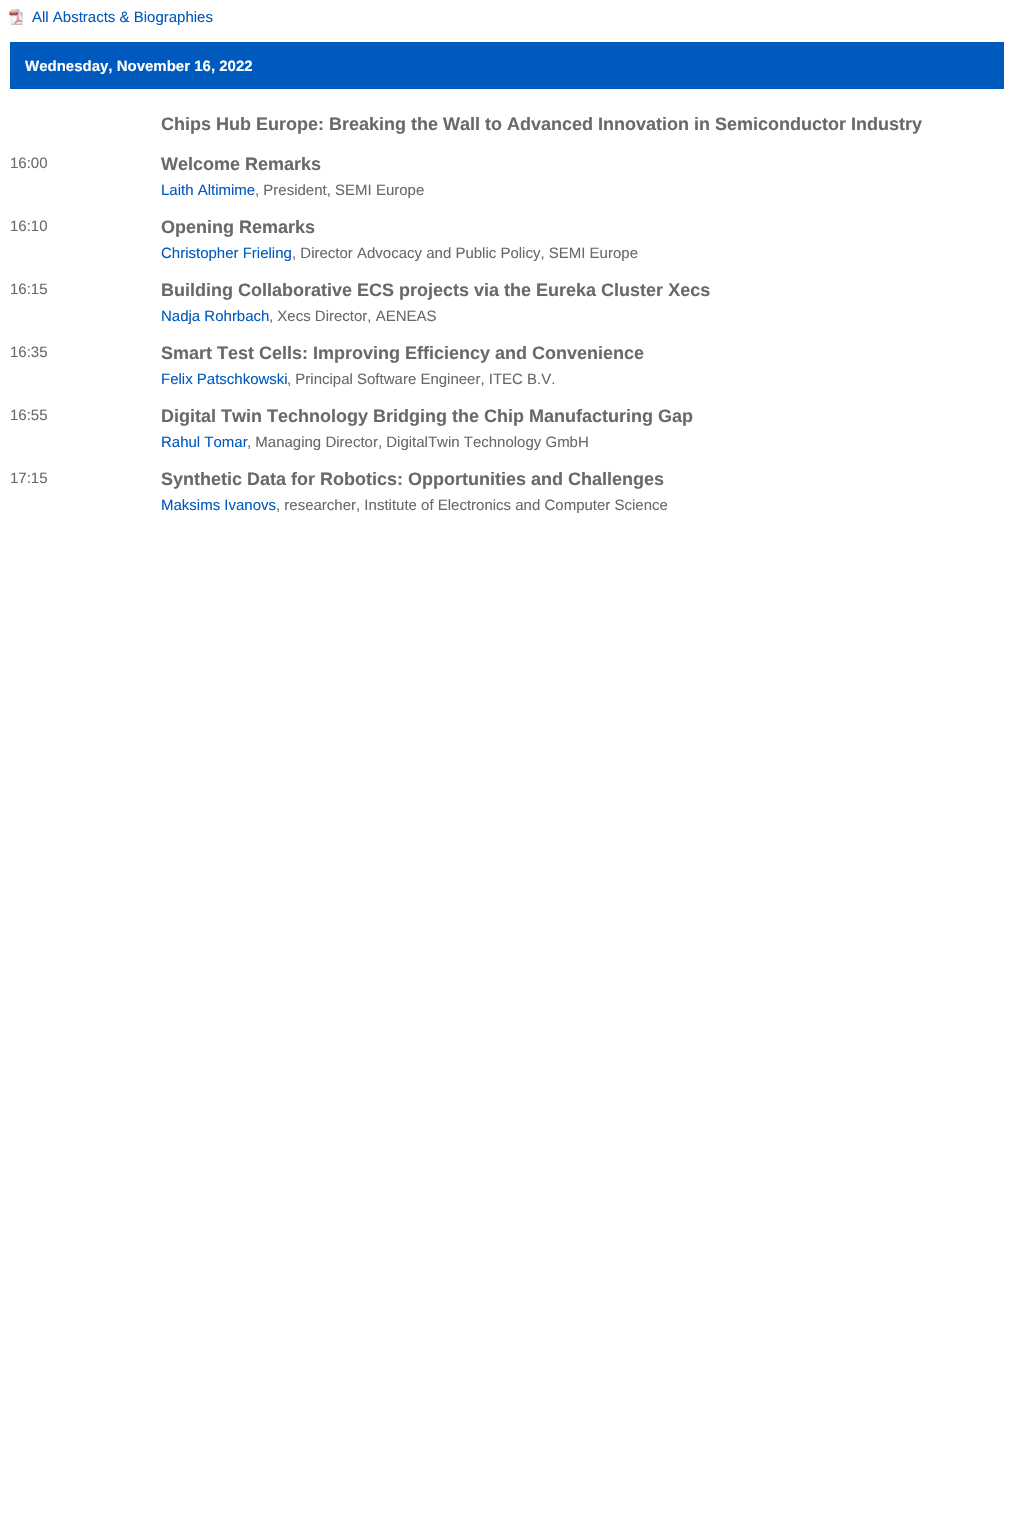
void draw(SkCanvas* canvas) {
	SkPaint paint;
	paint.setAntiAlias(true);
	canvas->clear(0xffffffff);
	canvas->drawImageRect(SkImages::DeferredFromEncodedData(SkData::MakeFromFileName("img1.png")), SkRect::MakeXYWH(9, 9, 15, 16), SkSamplingOptions());
	SkFont f1(fontMgr->matchFamilyStyle("Liberation Sans", SkFontStyle::Normal()), 15);
	f1.setSubpixel(true);
	paint.setColor(0xff005abe);
	canvas->drawString("All Abstracts & Biographies", 32, 22, f1, paint);
	canvas->drawRect(SkRect::MakeXYWH(10, 42, 994, 47), paint);
	SkFont f2(fontMgr->matchFamilyStyle("Liberation Sans", SkFontStyle::Bold()), 15);
	f2.setSubpixel(true);
	paint.setColor(0xffffffff);
	canvas->drawString("Wednesday, November 16, 2022", 25, 71, f2, paint);
	SkFont f3(fontMgr->matchFamilyStyle("Liberation Sans", SkFontStyle::Bold()), 18);
	f3.setSubpixel(true);
	paint.setColor(0xff696969);
	canvas->drawString("Chips Hub Europe: Breaking the Wall to Advanced Innovation in Semiconductor Industry", 161, 130, f3, paint);
	canvas->drawString("16:00", 10, 168, f1, paint);
	canvas->drawString("Welcome Remarks", 161, 170, f3, paint);
	paint.setColor(0xff005abe);
	canvas->drawString("Laith Altimime", 161, 195, f1, paint);
	paint.setColor(0xff696969);
	canvas->drawString(", President, SEMI Europe", 255, 195, f1, paint);
	canvas->drawString("16:10", 10, 231, f1, paint);
	canvas->drawString("Opening Remarks", 161, 233, f3, paint);
	paint.setColor(0xff005abe);
	canvas->drawString("Christopher Frieling", 161, 258, f1, paint);
	paint.setColor(0xff696969);
	canvas->drawString(", Director Advocacy and Public Policy, SEMI Europe", 292, 258, f1, paint);
	canvas->drawString("16:15", 10, 294, f1, paint);
	canvas->drawString("Building Collaborative ECS projects via the Eureka Cluster Xecs", 161, 296, f3, paint);
	paint.setColor(0xff005abe);
	canvas->drawString("Nadja Rohrbach", 161, 321, f1, paint);
	paint.setColor(0xff696969);
	canvas->drawString(", Xecs Director, AENEAS", 269, 321, f1, paint);
	canvas->drawString("16:35", 10, 357, f1, paint);
	canvas->drawString("Smart Test Cells: Improving Efficiency and Convenience", 161, 359, f3, paint);
	paint.setColor(0xff005abe);
	canvas->drawString("Felix Patschkowski", 161, 384, f1, paint);
	paint.setColor(0xff696969);
	canvas->drawString(", Principal Software Engineer, ITEC B.V.", 287, 384, f1, paint);
	canvas->drawString("16:55", 10, 420, f1, paint);
	canvas->drawString("Digital Twin Technology Bridging the Chip Manufacturing Gap", 161, 422, f3, paint);
	paint.setColor(0xff005abe);
	canvas->drawString("Rahul Tomar", 161, 447, f1, paint);
	paint.setColor(0xff696969);
	canvas->drawString(", Managing Director, DigitalTwin Technology GmbH", 247, 447, f1, paint);
	canvas->drawString("17:15", 10, 483, f1, paint);
	canvas->drawString("Synthetic Data for Robotics: Opportunities and Challenges", 161, 485, f3, paint);
	paint.setColor(0xff005abe);
	canvas->drawString("Maksims Ivanovs", 161, 510, f1, paint);
	paint.setColor(0xff696969);
	canvas->drawString(", researcher, Institute of Electronics and Computer Science", 276, 510, f1, paint);
}
